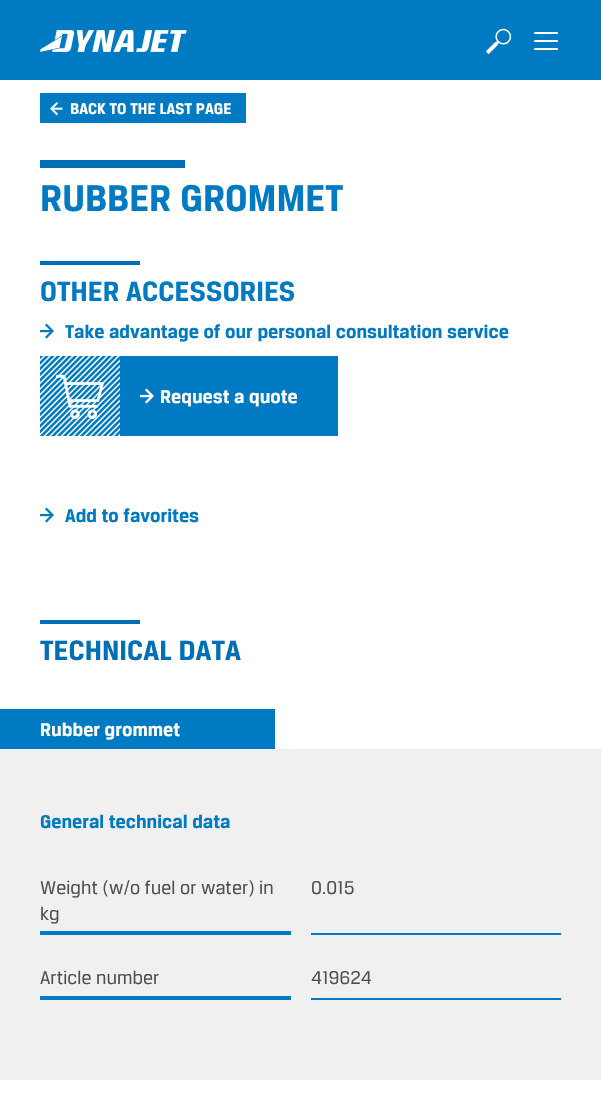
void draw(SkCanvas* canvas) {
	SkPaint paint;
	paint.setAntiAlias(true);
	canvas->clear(0xffffffff);
	paint.setColor(0xff007ac2);
	canvas->drawRect(SkRect::MakeXYWH(0, 0, 601, 80), paint);
	canvas->drawImageRect(SkImages::DeferredFromEncodedData(SkData::MakeFromFileName("img1.png")), SkRect::MakeXYWH(40, 30, 147, 22), SkSamplingOptions());
	canvas->drawImageRect(SkImages::DeferredFromEncodedData(SkData::MakeFromFileName("img2.png")), SkRect::MakeXYWH(486, 28, 26, 26), SkSamplingOptions());
	canvas->drawImageRect(SkImages::DeferredFromEncodedData(SkData::MakeFromFileName("img3.png")), SkRect::MakeXYWH(534, 32, 24, 18), SkSamplingOptions());
	canvas->drawRect(SkRect::MakeXYWH(40, 93, 206, 30), paint);
	canvas->drawImageRect(SkImages::DeferredFromEncodedData(SkData::MakeFromFileName("img4.png")), SkRect::MakeXYWH(50, 102, 13, 14), SkSamplingOptions());
	SkFont f1(fontMgr->matchFamilyStyle("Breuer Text", SkFontStyle::Bold()), 15);
	f1.setSubpixel(true);
	paint.setColor(0xffffffff);
	canvas->drawString("BACK TO THE LAST PAGE", 70, 114, f1, paint);
	paint.setColor(0xff006fb6);
	canvas->drawRect(SkRect::MakeXYWH(40, 160, 145, 8), paint);
	SkFont f2(fontMgr->matchFamilyStyle("Breuer Text", SkFontStyle::Bold()), 36);
	f2.setSubpixel(true);
	paint.setColor(0xff007ac2);
	canvas->drawString("RUBBER GROMMET", 40, 211, f2, paint);
	paint.setColor(0xff006fb6);
	canvas->drawRect(SkRect::MakeXYWH(40, 261, 100, 4), paint);
	SkFont f3(fontMgr->matchFamilyStyle("Breuer Text", SkFontStyle::Bold()), 27);
	f3.setSubpixel(true);
	paint.setColor(0xff007ac2);
	canvas->drawString("OTHER ACCESSORIES", 40, 301, f3, paint);
	canvas->drawImageRect(SkImages::DeferredFromEncodedData(SkData::MakeFromFileName("img5.png")), SkRect::MakeXYWH(40, 323, 14, 16), SkSamplingOptions());
	SkFont f4(fontMgr->matchFamilyStyle("Breuer Text", SkFontStyle::Bold()), 18);
	f4.setSubpixel(true);
	canvas->drawString("Take advantage of our personal consultation service", 65, 338, f4, paint);
	canvas->drawRect(SkRect::MakeXYWH(40, 356, 298, 80), paint);
	canvas->drawImageRect(SkImages::DeferredFromEncodedData(SkData::MakeFromFileName("img6.png")), SkRect::MakeXYWH(40, 356, 80, 80), SkSamplingOptions());
	canvas->drawImageRect(SkImages::DeferredFromEncodedData(SkData::MakeFromFileName("img7.png")), SkRect::MakeXYWH(56, 374, 48, 45), SkSamplingOptions());
	canvas->drawImageRect(SkImages::DeferredFromEncodedData(SkData::MakeFromFileName("img8.png")), SkRect::MakeXYWH(140, 388, 14, 16), SkSamplingOptions());
	paint.setColor(0xffffffff);
	canvas->drawString("Request a quote", 160, 403, f4, paint);
	canvas->drawImageRect(SkImages::DeferredFromEncodedData(SkData::MakeFromFileName("img5.png")), SkRect::MakeXYWH(40, 507, 14, 16), SkSamplingOptions());
	paint.setColor(0xff007ac2);
	canvas->drawString("Add to favorites", 65, 522, f4, paint);
	paint.setColor(0xff006fb6);
	canvas->drawRect(SkRect::MakeXYWH(40, 620, 100, 4), paint);
	canvas->drawString("TECHNICAL DATA", 40, 660, f3, paint);
	paint.setColor(0xff007ac2);
	canvas->drawRect(SkRect::MakeXYWH(0, 709, 275, 40), paint);
	paint.setColor(0xffffffff);
	canvas->drawString("Rubber grommet", 40, 736, f4, paint);
	paint.setColor(0xfff0f0f0);
	canvas->drawRect(SkRect::MakeXYWH(0, 749, 601, 331), paint);
	paint.setColor(0xff007ac2);
	canvas->drawString("General technical data", 40, 828, f4, paint);
	canvas->drawRect(SkRect::MakeXYWH(40, 931, 251, 4), paint);
	SkFont f5(fontMgr->matchFamilyStyle("Breuer Text", SkFontStyle(500, SkFontStyle::kNormal_Width, SkFontStyle::kUpright_Slant)), 18);
	f5.setSubpixel(true);
	paint.setColor(0xff4f4f4f);
	canvas->drawString("Weight (w/o fuel or water) in", 40, 894, f5, paint);
	canvas->drawString("kg", 40, 920, f5, paint);
	paint.setColor(0xff007ac2);
	canvas->drawRect(SkRect::MakeXYWH(311, 933, 250, 2), paint);
	paint.setColor(0xff4f4f4f);
	canvas->drawString("0.015", 311, 894, f5, paint);
	paint.setColor(0xff007ac2);
	canvas->drawRect(SkRect::MakeXYWH(40, 996, 251, 4), paint);
	paint.setColor(0xff4f4f4f);
	canvas->drawString("Article number", 40, 984, f5, paint);
	paint.setColor(0xff007ac2);
	canvas->drawRect(SkRect::MakeXYWH(311, 998, 250, 2), paint);
	paint.setColor(0xff4f4f4f);
	canvas->drawString("419624", 311, 984, f5, paint);
}
